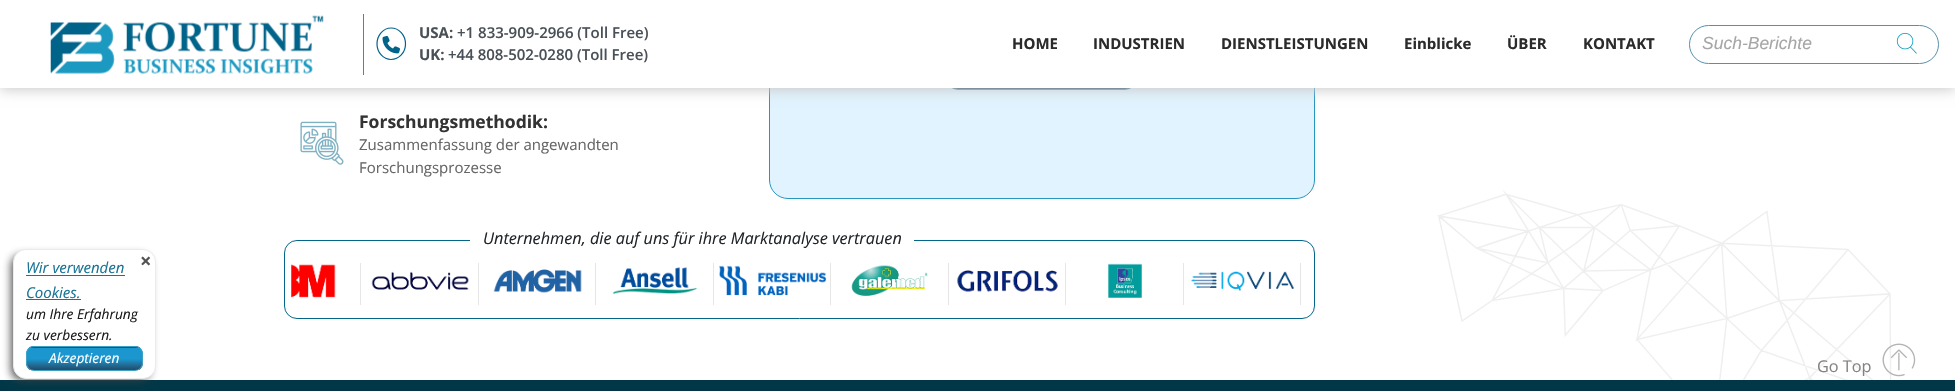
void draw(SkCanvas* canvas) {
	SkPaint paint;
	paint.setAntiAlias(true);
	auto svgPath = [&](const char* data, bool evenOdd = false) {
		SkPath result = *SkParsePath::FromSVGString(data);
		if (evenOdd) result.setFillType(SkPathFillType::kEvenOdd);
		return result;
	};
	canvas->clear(0xffffffff);
	paint.setColor(0xffe0f3fe);
	canvas->drawRoundRect(SkRect::MakeXYWH(769.5, -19.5, 545, 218), 18.5, 18.5, paint);
	paint.setStroke(true);
	paint.setStrokeWidth(1);
	paint.setColor(0xff2596be);
	canvas->drawRoundRect(SkRect::MakeXYWH(769.5, -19.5, 545, 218), 18.5, 18.5, paint);
	canvas->save();
	canvas->clipPath(svgPath("M958 33H1125C1130.5 33 1135 37.5 1135 43V80C1135 85.5 1130.5 90 1125 90H958C952.5 90 948 85.5 948 80V43C948 37.5 952.5 33 958 33Z"), true);
	paint.setStroke(false);
	{
		const SkColor colors[] = {0xff028aca, 0xff028aca, 0xff0d3656};
		const float stops[] = {0, 0.5, 1};
		const SkPoint ends[] = {{1041, 34}, {1041, 89}};
		paint.setShader(SkGradientShader::MakeLinear(ends, colors, stops, 3, SkTileMode::kClamp));
		paint.setAlpha(255);
	}
	canvas->drawRect(SkRect::MakeXYWH(952, 88, 179, 1), paint);
	canvas->restore();
	paint.setStroke(true);
	paint.setShader(nullptr);
	paint.setColor(0xff2596be);
	canvas->drawRoundRect(SkRect::MakeXYWH(948.5, 33.5, 186, 56), 9.5, 9.5, paint);
	paint.setStroke(false);
	paint.setColor(0xffcccccc);
	paint.setMaskFilter(SkMaskFilter::MakeBlur(kNormal_SkBlurStyle, 6));
	canvas->drawRect(SkRect::MakeXYWH(0, 3, 1955, 87), paint);
	paint.setMaskFilter(nullptr);
	paint.setColor(0xffffffff);
	canvas->drawRect(SkRect::MakeXYWH(0, 0, 1955, 88), paint);
	paint.setColor(0xff74797e);
	canvas->drawRect(SkRect::MakeXYWH(363, 14, 1, 61), paint);
	canvas->drawImageRect(SkImages::DeferredFromEncodedData(SkData::MakeFromFileName("img1.png")), SkRect::MakeXYWH(50, 15, 274, 59), SkSamplingOptions());
	paint.setStroke(true);
	paint.setStrokeWidth(1.2);
	paint.setColor(0xff006389);
	canvas->drawPath(svgPath("M391 28C399 28 405.5 35 405.5 44C405.5 52.5 399 59.5 391 59.5C383.5 59.5 377 52.5 377 44C377 35 383.5 28 391 28Z"), paint);
	canvas->drawImageRect(SkImages::DeferredFromEncodedData(SkData::MakeFromFileName("img2.png")), SkRect::MakeXYWH(382, 35, 18, 19), SkSamplingOptions());
	SkFont f1(fontMgr->matchFamilyStyle("Open Sans", SkFontStyle::Bold()), 15);
	f1.setSubpixel(true);
	paint.setStroke(false);
	paint.setColor(0xff495057);
	canvas->drawString("USA:", 419, 38, f1, paint);
	SkFont f2(fontMgr->matchFamilyStyle("Open Sans", SkFontStyle(600, SkFontStyle::kNormal_Width, SkFontStyle::kUpright_Slant)), 15);
	f2.setSubpixel(true);
	canvas->drawString("+1 833-909-2966 (Toll Free)", 457, 38, f2, paint);
	canvas->drawString("UK:", 419, 60, f1, paint);
	canvas->drawString("+44 808-502-0280 (Toll Free)", 448, 60, f2, paint);
	paint.setColor(0xff2b2b2b);
	canvas->drawString("HOME", 1012, 49, f1, paint);
	canvas->drawString("INDUSTRIEN", 1093, 49, f1, paint);
	canvas->drawString("DIENSTLEISTUNGEN", 1221, 49, f1, paint);
	canvas->drawString("Einblicke", 1404, 49, f1, paint);
	canvas->drawString("ÜBER", 1507, 49, f1, paint);
	canvas->drawString("KONTAKT", 1583, 49, f1, paint);
	paint.setStroke(true);
	paint.setStrokeWidth(1);
	paint.setColor(0xff5691ab);
	canvas->drawRoundRect(SkRect::MakeXYWH(1689.5, 25.5, 249, 38), 19, 19, paint);
	SkFont f3(fontMgr->matchFamilyStyle("Liberation Sans", SkFontStyle::Italic()), 17.5);
	f3.setSubpixel(true);
	paint.setStroke(false);
	paint.setColor(0xffa6a6a6);
	canvas->drawString("Such-Berichte", 1702, 49, f3, paint);
	canvas->drawImageRect(SkImages::DeferredFromEncodedData(SkData::MakeFromFileName("img3.png")), SkRect::MakeXYWH(1896, 32, 21, 22), SkSamplingOptions());
	canvas->drawImageRect(SkImages::DeferredFromEncodedData(SkData::MakeFromFileName("img4.png")), SkRect::MakeXYWH(1437, 190, 455, 190), SkSamplingOptions());
	canvas->drawImageRect(SkImages::DeferredFromEncodedData(SkData::MakeFromFileName("img5.png")), SkRect::MakeXYWH(300, 121, 44, 44), SkSamplingOptions());
	SkFont f4(fontMgr->matchFamilyStyle("Open Sans", SkFontStyle::Bold()), 17.5);
	f4.setSubpixel(true);
	paint.setColor(0xff333333);
	canvas->drawString("Forschungsmethodik:", 359, 128, f4, paint);
	SkFont f5(fontMgr->matchFamilyStyle("Open Sans", SkFontStyle::Normal()), 15);
	f5.setSubpixel(true);
	paint.setColor(0xff666666);
	canvas->drawString("Zusammenfassung der angewandten", 359, 150, f5, paint);
	canvas->drawString("Forschungsprozesse", 359, 173, f5, paint);
	paint.setStroke(true);
	paint.setColor(0xff046489);
	canvas->drawRoundRect(SkRect::MakeXYWH(284.5, 240.5, 1030, 78), 12.5, 12.5, paint);
	paint.setStroke(false);
	paint.setColor(0xffffffff);
	canvas->drawRect(SkRect::MakeXYWH(470, 240, 444, 1), paint);
	SkFont f6(fontMgr->matchFamilyStyle("Open Sans", SkFontStyle::Italic()), 16.25);
	f6.setSubpixel(true);
	paint.setColor(0xff212529);
	canvas->drawString("Unternehmen, die auf uns für ihre Marktanalyse vertrauen", 483, 244, f6, paint);
	paint.setColor(0xffe6e6e6);
	canvas->drawRect(SkRect::MakeXYWH(360, 263, 1, 42), paint);
	canvas->drawImageRect(SkImages::DeferredFromEncodedData(SkData::MakeFromFileName("img6.png")), SkRect::MakeXYWH(291, 264, 45, 34), SkSamplingOptions());
	canvas->drawRect(SkRect::MakeXYWH(478, 263, 1, 42), paint);
	canvas->drawImageRect(SkImages::DeferredFromEncodedData(SkData::MakeFromFileName("img7.png")), SkRect::MakeXYWH(371, 271, 98, 19), SkSamplingOptions());
	canvas->drawRect(SkRect::MakeXYWH(595, 263, 1, 42), paint);
	canvas->drawImageRect(SkImages::DeferredFromEncodedData(SkData::MakeFromFileName("img8.png")), SkRect::MakeXYWH(493, 269, 89, 24), SkSamplingOptions());
	canvas->drawRect(SkRect::MakeXYWH(713, 263, 1, 42), paint);
	canvas->drawImageRect(SkImages::DeferredFromEncodedData(SkData::MakeFromFileName("img9.png")), SkRect::MakeXYWH(612, 267, 86, 28), SkSamplingOptions());
	canvas->drawRect(SkRect::MakeXYWH(830, 263, 1, 42), paint);
	canvas->drawImageRect(SkImages::DeferredFromEncodedData(SkData::MakeFromFileName("img10.png")), SkRect::MakeXYWH(719, 265, 108, 31), SkSamplingOptions());
	canvas->drawRect(SkRect::MakeXYWH(948, 263, 1, 42), paint);
	canvas->drawImageRect(SkImages::DeferredFromEncodedData(SkData::MakeFromFileName("img11.png")), SkRect::MakeXYWH(851, 265, 77, 31), SkSamplingOptions());
	canvas->drawRect(SkRect::MakeXYWH(1065, 263, 1, 42), paint);
	canvas->drawImageRect(SkImages::DeferredFromEncodedData(SkData::MakeFromFileName("img12.png")), SkRect::MakeXYWH(957, 270, 101, 22), SkSamplingOptions());
	canvas->drawRect(SkRect::MakeXYWH(1183, 263, 1, 42), paint);
	canvas->drawImageRect(SkImages::DeferredFromEncodedData(SkData::MakeFromFileName("img13.png")), SkRect::MakeXYWH(1108, 263, 34, 35), SkSamplingOptions());
	canvas->drawRect(SkRect::MakeXYWH(1300, 263, 1, 42), paint);
	canvas->drawImageRect(SkImages::DeferredFromEncodedData(SkData::MakeFromFileName("img14.png")), SkRect::MakeXYWH(1191, 271, 104, 20), SkSamplingOptions());
	paint.setColor(0xff013747);
	canvas->drawRect(SkRect::MakeXYWH(0, 380, 1955, 11), paint);
	paint.setColor(0xe6404040);
	paint.setMaskFilter(SkMaskFilter::MakeBlur(kNormal_SkBlurStyle, 4.5));
	canvas->drawRoundRect(SkRect::MakeXYWH(11, 255, 139, 125), 10, 10, paint);
	paint.setMaskFilter(nullptr);
	paint.setColor(0xffffffff);
	canvas->drawRoundRect(SkRect::MakeXYWH(13.5, 249.5, 142, 129), 12.5, 12.5, paint);
	paint.setStroke(true);
	paint.setColor(0xffebebeb);
	canvas->drawRoundRect(SkRect::MakeXYWH(13.5, 249.5, 142, 129), 12.5, 12.5, paint);
	SkFont f7(fontMgr->matchFamilyStyle("Open Sans", SkFontStyle::Italic()), 15);
	f7.setSubpixel(true);
	paint.setStroke(false);
	paint.setColor(0xff1a7394);
	canvas->drawString("Wir verwenden", 26, 273, f7, paint);
	canvas->drawRect(SkRect::MakeXYWH(26, 275, 99, 1), paint);
	canvas->drawString("Cookies.", 26, 298, f7, paint);
	canvas->drawRect(SkRect::MakeXYWH(26, 299, 55, 1), paint);
	SkFont f8(fontMgr->matchFamilyStyle("Open Sans", SkFontStyle::Italic()), 13.75);
	f8.setSubpixel(true);
	paint.setColor(0xff1a1a1a);
	canvas->drawString("um Ihre Erfahrung", 26, 319, f8, paint);
	canvas->drawString("zu verbessern.", 26, 340, f8, paint);
	SkFont f9(fontMgr->matchFamilyStyle("Open Sans", SkFontStyle::Bold()), 20);
	f9.setSubpixel(true);
	paint.setColor(0xff535353);
	canvas->drawString("×", 140, 268, f9, paint);
	canvas->save();
	canvas->clipPath(svgPath("M34 346H135C139.5 346 143 349.5 143 354V363C143 367.5 139.5 371 135 371H34C29.5 371 26 367.5 26 363V354C26 349.5 29.5 346 34 346Z"), true);
	{
		const SkColor colors[] = {0xff1b96cf, 0xff1b96cf, 0xff254a67};
		const float stops[] = {0, 0.5, 1};
		const SkPoint ends[] = {{84, 325}, {84, 348}};
		paint.setShader(SkGradientShader::MakeLinear(ends, colors, stops, 3, SkTileMode::kClamp));
		paint.setAlpha(255);
	}
	canvas->drawRect(SkRect::MakeXYWH(26, 346, 117, 2), paint);
	{
		const SkColor colors[] = {0xff1b96cf, 0xff1b96cf, 0xff254a67};
		const float stops[] = {0, 0.5, 1};
		const SkPoint ends[] = {{84, 348}, {84, 370}};
		paint.setShader(SkGradientShader::MakeLinear(ends, colors, stops, 3, SkTileMode::kClamp));
		paint.setAlpha(255);
	}
	canvas->drawRect(SkRect::MakeXYWH(26, 348, 117, 22), paint);
	canvas->restore();
	paint.setStroke(true);
	paint.setShader(nullptr);
	paint.setColor(0xff3ba1c5);
	canvas->drawRoundRect(SkRect::MakeXYWH(26.5, 346.5, 116, 24), 7.5, 7.5, paint);
	paint.setStroke(false);
	paint.setColor(0xffffffff);
	canvas->drawString("Akzeptieren", 49, 363, f8, paint);
	SkFont f10(fontMgr->matchFamilyStyle("Open Sans", SkFontStyle::Normal()), 16.25);
	f10.setSubpixel(true);
	paint.setColor(0xff848382);
	canvas->drawString("Go Top", 1817, 372, f10, paint);
	canvas->drawImageRect(SkImages::DeferredFromEncodedData(SkData::MakeFromFileName("img15.png")), SkRect::MakeXYWH(1882, 343, 34, 34), SkSamplingOptions());
}
